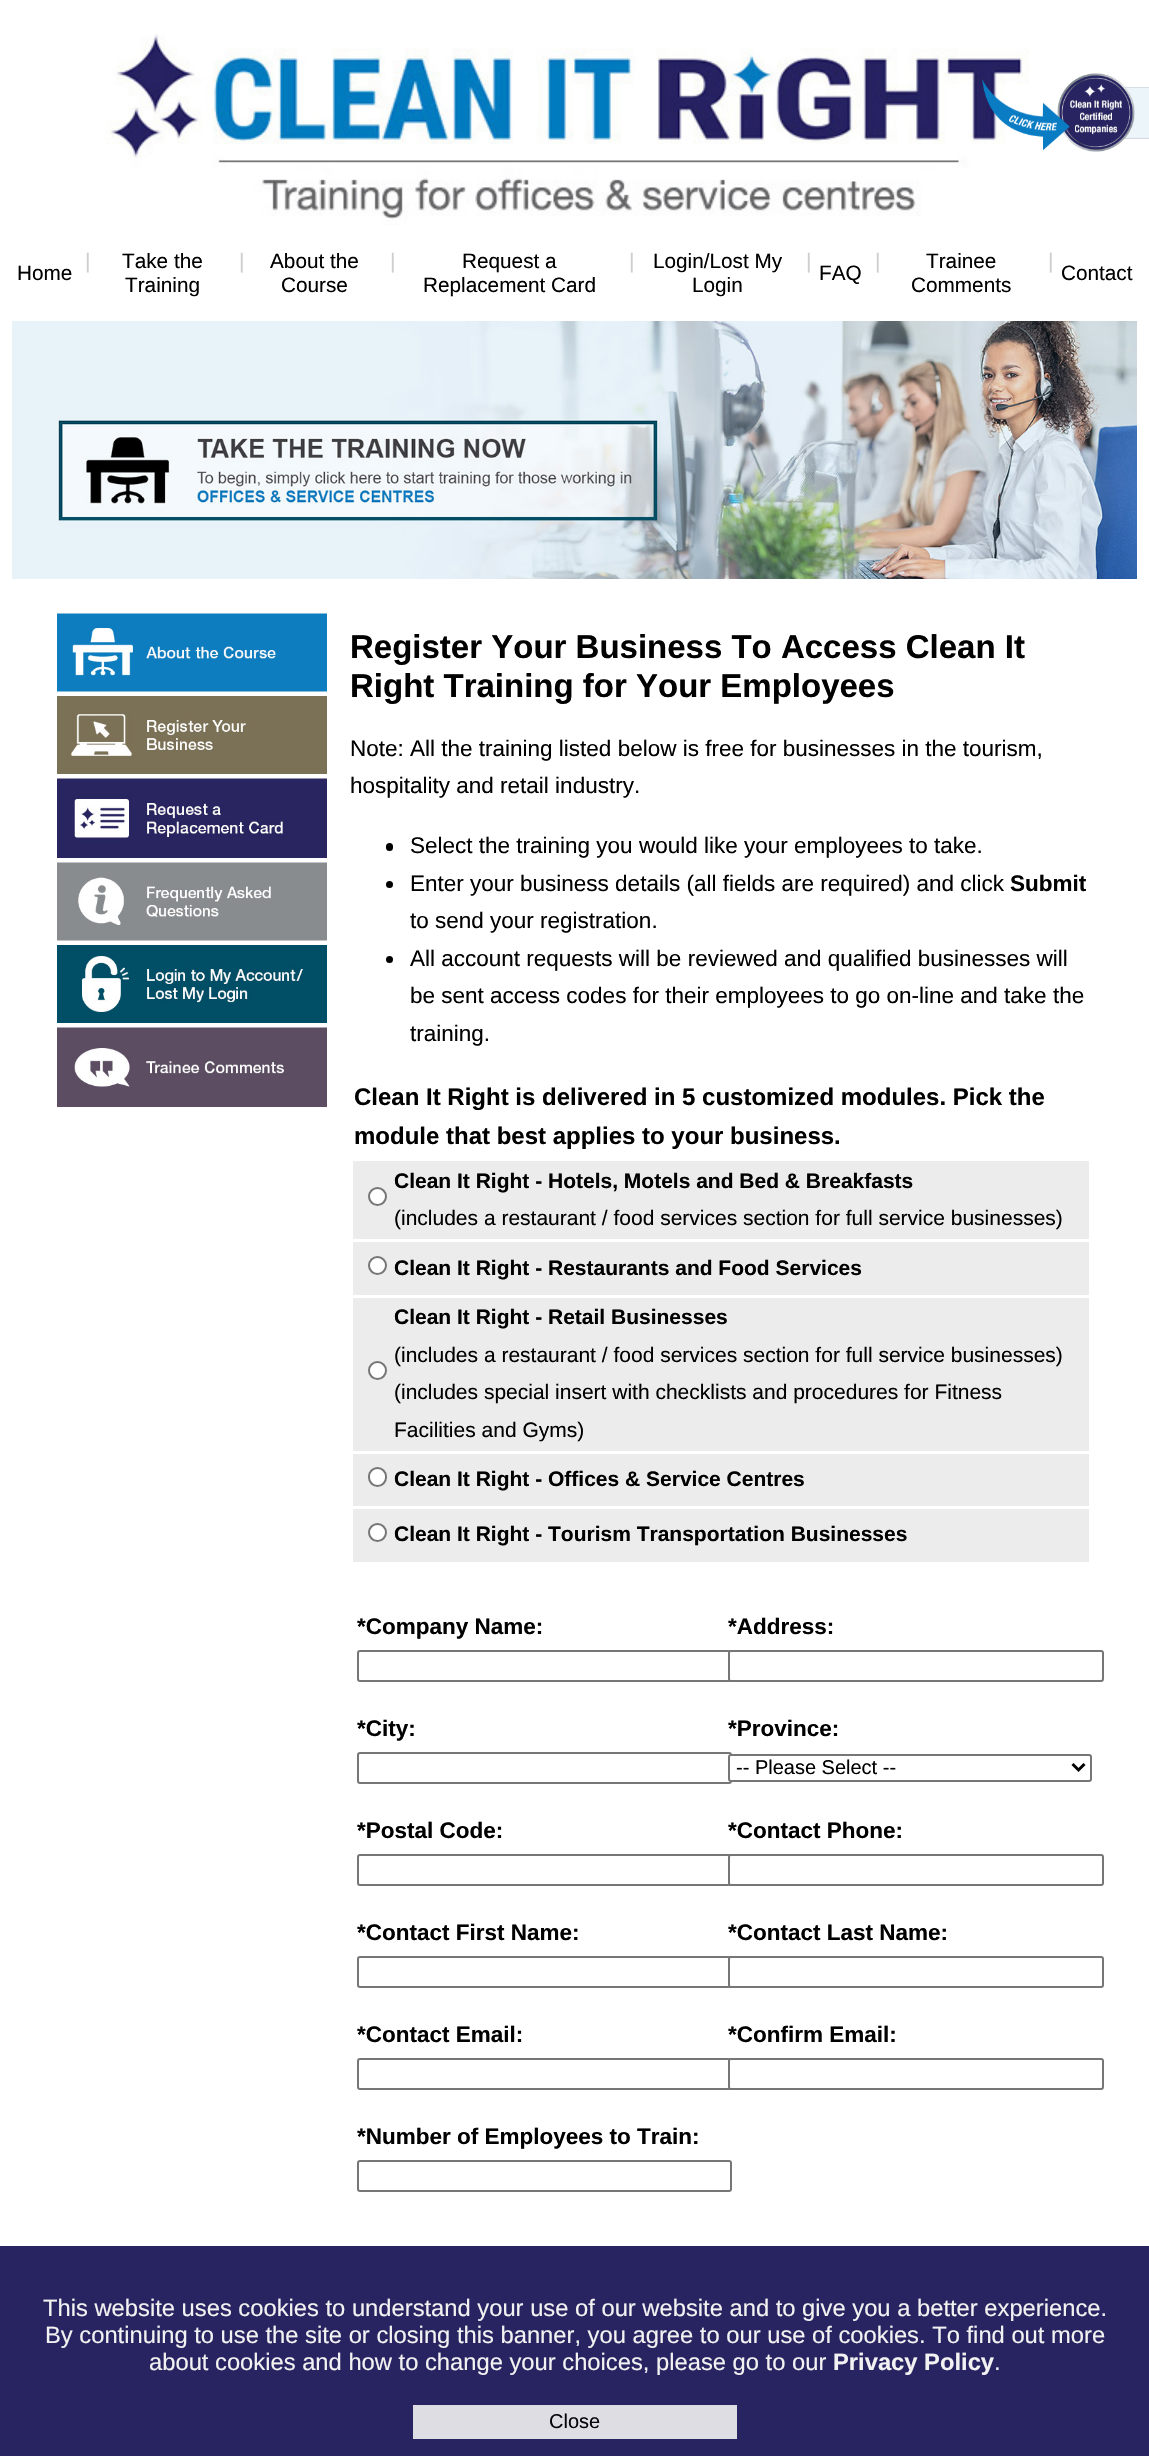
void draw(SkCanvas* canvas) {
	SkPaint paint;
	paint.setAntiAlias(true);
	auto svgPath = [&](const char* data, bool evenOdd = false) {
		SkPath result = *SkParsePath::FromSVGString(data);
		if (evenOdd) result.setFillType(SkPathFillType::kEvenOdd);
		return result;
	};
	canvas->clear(0xffffffff);
	canvas->drawImageRect(SkImages::DeferredFromEncodedData(SkData::MakeFromFileName("img2.png")), SkRect::MakeXYWH(105, 34, 924, 191), SkSamplingOptions());
	canvas->drawImageRect(SkImages::DeferredFromEncodedData(SkData::MakeFromFileName("img1.png")), SkRect::MakeXYWH(982, 73, 167, 79), SkSamplingOptions());
	SkFont f1(fontMgr->matchFamilyStyle("Liberation Sans", SkFontStyle::Normal()), 20.75);
	f1.setSubpixel(true);
	paint.setColor(0xff000000);
	canvas->drawString("Home", 17, 280, f1, paint);
	SkFont f2(fontMgr->matchFamilyStyle("Liberation Sans", SkFontStyle::Normal()), 21);
	f2.setSubpixel(true);
	paint.setColor(0xffcecece);
	canvas->drawString("|", 85, 268, f2, paint);
	paint.setColor(0xff000000);
	canvas->drawString("Take the", 122, 268, f1, paint);
	canvas->drawString("Training", 125, 292, f1, paint);
	paint.setColor(0xffcecece);
	canvas->drawString("|", 239, 268, f2, paint);
	paint.setColor(0xff000000);
	canvas->drawString("About the", 270, 268, f1, paint);
	canvas->drawString("Course", 281, 292, f1, paint);
	paint.setColor(0xffcecece);
	canvas->drawString("|", 390, 268, f2, paint);
	paint.setColor(0xff000000);
	canvas->drawString("Request a", 462, 268, f1, paint);
	canvas->drawString("Replacement Card", 423, 292, f1, paint);
	paint.setColor(0xffcecece);
	canvas->drawString("|", 629, 268, f2, paint);
	paint.setColor(0xff000000);
	canvas->drawString("Login/Lost My", 653, 268, f1, paint);
	canvas->drawString("Login", 692, 292, f1, paint);
	paint.setColor(0xffcecece);
	canvas->drawString("|", 806, 268, f2, paint);
	paint.setColor(0xff000000);
	canvas->drawString("FAQ", 819, 280, f1, paint);
	paint.setColor(0xffcecece);
	canvas->drawString("|", 875, 268, f2, paint);
	paint.setColor(0xff000000);
	canvas->drawString("Trainee", 926, 268, f1, paint);
	canvas->drawString("Comments", 911, 292, f1, paint);
	paint.setColor(0xffcecece);
	canvas->drawString("|", 1048, 268, f2, paint);
	paint.setColor(0xff000000);
	canvas->drawString("Contact", 1061, 280, f1, paint);
	canvas->drawImageRect(SkImages::DeferredFromEncodedData(SkData::MakeFromFileName("img3.png")), SkRect::MakeXYWH(12, 321, 1125, 258), SkSamplingOptions());
	canvas->drawImageRect(SkImages::DeferredFromEncodedData(SkData::MakeFromFileName("img4.png")), SkRect::MakeXYWH(57, 613, 270, 79), SkSamplingOptions());
	canvas->drawImageRect(SkImages::DeferredFromEncodedData(SkData::MakeFromFileName("img5.png")), SkRect::MakeXYWH(57, 696, 270, 78), SkSamplingOptions());
	canvas->drawImageRect(SkImages::DeferredFromEncodedData(SkData::MakeFromFileName("img6.png")), SkRect::MakeXYWH(57, 778, 270, 80), SkSamplingOptions());
	canvas->drawImageRect(SkImages::DeferredFromEncodedData(SkData::MakeFromFileName("img7.png")), SkRect::MakeXYWH(57, 862, 270, 79), SkSamplingOptions());
	canvas->drawImageRect(SkImages::DeferredFromEncodedData(SkData::MakeFromFileName("img8.png")), SkRect::MakeXYWH(57, 945, 270, 78), SkSamplingOptions());
	canvas->drawImageRect(SkImages::DeferredFromEncodedData(SkData::MakeFromFileName("img9.png")), SkRect::MakeXYWH(57, 1027, 270, 80), SkSamplingOptions());
	SkFont f3(fontMgr->matchFamilyStyle("Liberation Sans", SkFontStyle::Bold()), 33);
	f3.setSubpixel(true);
	canvas->drawString("Register Your Business To Access Clean It", 350, 658, f3, paint);
	canvas->drawString("Right Training for Your Employees", 350, 697, f3, paint);
	SkFont f4(fontMgr->matchFamilyStyle("Liberation Sans", SkFontStyle::Normal()), 22.5);
	f4.setSubpixel(true);
	canvas->drawString("Note: All the training listed below is free for businesses in the tourism,", 350, 756, f4, paint);
	canvas->drawString("hospitality and retail industry.", 350, 793, f4, paint);
	canvas->drawRoundRect(SkRect::MakeXYWH(386, 843, 7, 8), 3.5, 3.5, paint);
	canvas->drawString("Select the training you would like your employees to take.", 410, 853, f4, paint);
	canvas->drawCircle(389.5, 884.5, 3.5, paint);
	canvas->drawString("Enter your business details (all fields are required) and click", 410, 891, f4, paint);
	SkFont f5(fontMgr->matchFamilyStyle("Liberation Sans", SkFontStyle::Bold()), 22.5);
	f5.setSubpixel(true);
	canvas->drawString("Submit", 1010, 891, f5, paint);
	canvas->drawString("to send your registration.", 410, 928, f4, paint);
	canvas->drawCircle(389.5, 959.5, 3.5, paint);
	canvas->drawString("All account requests will be reviewed and qualified businesses will", 410, 966, f4, paint);
	canvas->drawString("be sent access codes for their employees to go on-line and take the", 410, 1003, f4, paint);
	canvas->drawString("training.", 410, 1041, f4, paint);
	SkFont f6(fontMgr->matchFamilyStyle("Liberation Sans", SkFontStyle::Bold()), 24);
	f6.setSubpixel(true);
	canvas->drawString("Clean It Right is delivered in 5 customized modules. Pick the", 354, 1105, f6, paint);
	canvas->drawString("module that best applies to your business.", 354, 1144, f6, paint);
	paint.setColor(0xffececec);
	canvas->drawRect(SkRect::MakeXYWH(353, 1161, 736, 78), paint);
	paint.setColor(0xffffffff);
	canvas->drawCircle(377.5, 1196.5, 8.5, paint);
	paint.setStroke(true);
	paint.setStrokeWidth(2);
	paint.setColor(0xff767676);
	canvas->drawCircle(377.5, 1196.5, 8.5, paint);
	SkFont f7(fontMgr->matchFamilyStyle("Liberation Sans", SkFontStyle::Bold()), 21);
	f7.setSubpixel(true);
	paint.setStroke(false);
	paint.setColor(0xff000000);
	canvas->drawString("Clean It Right - Hotels, Motels and Bed & Breakfasts", 394, 1188, f7, paint);
	canvas->drawString("(includes a restaurant / food services section for full service businesses)", 394, 1225, f2, paint);
	paint.setColor(0xffececec);
	canvas->drawRect(SkRect::MakeXYWH(353, 1242, 736, 53), paint);
	paint.setColor(0xffffffff);
	canvas->drawCircle(377.5, 1265.5, 8.5, paint);
	paint.setStroke(true);
	paint.setColor(0xff767676);
	canvas->drawCircle(377.5, 1265.5, 8.5, paint);
	paint.setStroke(false);
	paint.setColor(0xff000000);
	canvas->drawString("Clean It Right - Restaurants and Food Services", 394, 1275, f7, paint);
	paint.setColor(0xffececec);
	canvas->drawRect(SkRect::MakeXYWH(353, 1298, 736, 153), paint);
	paint.setColor(0xffffffff);
	canvas->drawCircle(377.5, 1370.5, 8.5, paint);
	paint.setStroke(true);
	paint.setColor(0xff767676);
	canvas->drawCircle(377.5, 1370.5, 8.5, paint);
	paint.setStroke(false);
	paint.setColor(0xff000000);
	canvas->drawString("Clean It Right - Retail Businesses", 394, 1324, f7, paint);
	canvas->drawString("(includes a restaurant / food services section for full service businesses)", 394, 1362, f2, paint);
	canvas->drawString("(includes special insert with checklists and procedures for Fitness", 394, 1399, f2, paint);
	canvas->drawString("Facilities and Gyms)", 394, 1437, f2, paint);
	paint.setColor(0xffececec);
	canvas->drawRect(SkRect::MakeXYWH(353, 1454, 736, 52), paint);
	paint.setColor(0xffffffff);
	canvas->drawRoundRect(SkRect::MakeXYWH(369, 1468, 17, 18), 8.5, 8.5, paint);
	paint.setStroke(true);
	paint.setColor(0xff767676);
	canvas->drawRoundRect(SkRect::MakeXYWH(369, 1468, 17, 18), 8.5, 8.5, paint);
	paint.setStroke(false);
	paint.setColor(0xff000000);
	canvas->drawString("Clean It Right - Offices & Service Centres", 394, 1486, f7, paint);
	paint.setColor(0xffececec);
	canvas->drawRect(SkRect::MakeXYWH(353, 1509, 736, 53), paint);
	paint.setColor(0xffffffff);
	canvas->drawCircle(377.5, 1532.5, 8.5, paint);
	paint.setStroke(true);
	paint.setColor(0xff767676);
	canvas->drawCircle(377.5, 1532.5, 8.5, paint);
	paint.setStroke(false);
	paint.setColor(0xff000000);
	canvas->drawString("Clean It Right - Tourism Transportation Businesses", 394, 1541, f7, paint);
	canvas->drawString("*Company Name:", 357, 1634, f5, paint);
	paint.setStroke(true);
	paint.setColor(0xff767676);
	canvas->drawRoundRect(SkRect::MakeXYWH(358, 1651, 373, 30), 2, 2, paint);
	paint.setStroke(false);
	paint.setColor(0xff000000);
	canvas->drawString("*Address:", 728, 1634, f5, paint);
	paint.setColor(0xffffffff);
	canvas->drawRoundRect(SkRect::MakeXYWH(729, 1651, 374, 30), 2, 2, paint);
	paint.setStroke(true);
	paint.setColor(0xff767676);
	canvas->drawRoundRect(SkRect::MakeXYWH(729, 1651, 374, 30), 2, 2, paint);
	paint.setStroke(false);
	paint.setColor(0xff000000);
	canvas->drawString("*City:", 357, 1736, f5, paint);
	paint.setStroke(true);
	paint.setColor(0xff767676);
	canvas->drawRoundRect(SkRect::MakeXYWH(358, 1753, 373, 30), 2, 2, paint);
	paint.setStroke(false);
	paint.setColor(0xff000000);
	canvas->drawString("*Province:", 728, 1736, f5, paint);
	paint.setColor(0xffffffff);
	canvas->drawRoundRect(SkRect::MakeXYWH(729, 1755, 362, 26), 2, 2, paint);
	paint.setStroke(true);
	paint.setColor(0xff767676);
	canvas->drawRoundRect(SkRect::MakeXYWH(729, 1755, 362, 26), 2, 2, paint);
	paint.setStrokeWidth(3);
	paint.setColor(0xff000000);
	canvas->drawPath(svgPath("M1072.5 1764L1078.5 1770L1084.5 1764"), paint);
	SkFont f8(fontMgr->matchFamilyStyle("Liberation Sans", SkFontStyle::Normal()), 20);
	f8.setSubpixel(true);
	paint.setStroke(false);
	canvas->drawString("-- Please Select --", 736, 1774, f8, paint);
	canvas->drawString("*Postal Code:", 357, 1838, f5, paint);
	paint.setStroke(true);
	paint.setStrokeWidth(2);
	paint.setColor(0xff767676);
	canvas->drawRoundRect(SkRect::MakeXYWH(358, 1855, 373, 30), 2, 2, paint);
	paint.setStroke(false);
	paint.setColor(0xff000000);
	canvas->drawString("*Contact Phone:", 728, 1838, f5, paint);
	paint.setColor(0xffffffff);
	canvas->drawRoundRect(SkRect::MakeXYWH(729, 1855, 374, 30), 2, 2, paint);
	paint.setStroke(true);
	paint.setColor(0xff767676);
	canvas->drawRoundRect(SkRect::MakeXYWH(729, 1855, 374, 30), 2, 2, paint);
	paint.setStroke(false);
	paint.setColor(0xff000000);
	canvas->drawString("*Contact First Name:", 357, 1940, f5, paint);
	paint.setStroke(true);
	paint.setColor(0xff767676);
	canvas->drawRoundRect(SkRect::MakeXYWH(358, 1957, 373, 30), 2, 2, paint);
	paint.setStroke(false);
	paint.setColor(0xff000000);
	canvas->drawString("*Contact Last Name:", 728, 1940, f5, paint);
	paint.setColor(0xffffffff);
	canvas->drawRoundRect(SkRect::MakeXYWH(729, 1957, 374, 30), 2, 2, paint);
	paint.setStroke(true);
	paint.setColor(0xff767676);
	canvas->drawRoundRect(SkRect::MakeXYWH(729, 1957, 374, 30), 2, 2, paint);
	paint.setStroke(false);
	paint.setColor(0xff000000);
	canvas->drawString("*Contact Email:", 357, 2042, f5, paint);
	paint.setStroke(true);
	paint.setColor(0xff767676);
	canvas->drawRoundRect(SkRect::MakeXYWH(358, 2059, 373, 30), 2, 2, paint);
	paint.setStroke(false);
	paint.setColor(0xff000000);
	canvas->drawString("*Confirm Email:", 728, 2042, f5, paint);
	paint.setColor(0xffffffff);
	canvas->drawRoundRect(SkRect::MakeXYWH(729, 2059, 374, 30), 2, 2, paint);
	paint.setStroke(true);
	paint.setColor(0xff767676);
	canvas->drawRoundRect(SkRect::MakeXYWH(729, 2059, 374, 30), 2, 2, paint);
	paint.setStroke(false);
	paint.setColor(0xff000000);
	canvas->drawString("*Number of Employees to Train:", 357, 2144, f5, paint);
	paint.setStroke(true);
	paint.setColor(0xff767676);
	canvas->drawRoundRect(SkRect::MakeXYWH(358, 2161, 373, 30), 2, 2, paint);
	paint.setStroke(false);
	paint.setColor(0xff282461);
	canvas->drawRect(SkRect::MakeXYWH(0, 2246, 1149, 210), paint);
	SkFont f9(fontMgr->matchFamilyStyle("Liberation Sans", SkFontStyle::Normal()), 23.75);
	f9.setSubpixel(true);
	paint.setColor(0xfff2f2f2);
	canvas->drawString("This website uses cookies to understand your use of our website and to give you a better experience.", 43, 2316, f9, paint);
	canvas->drawString("By continuing to use the site or closing this banner, you agree to our use of cookies. To find out more", 45, 2343, f9, paint);
	canvas->drawString("about cookies and how to change your choices, please go to our", 149, 2370, f9, paint);
	SkFont f10(fontMgr->matchFamilyStyle("Liberation Sans", SkFontStyle::Bold()), 23.75);
	f10.setSubpixel(true);
	canvas->drawString("Privacy Policy", 833, 2370, f10, paint);
	canvas->drawString(".", 994, 2370, f9, paint);
	paint.setColor(0xffdedde4);
	canvas->drawRect(SkRect::MakeXYWH(413, 2405, 324, 34), paint);
	paint.setColor(0xff04040a);
	canvas->drawString("Close", 549, 2428, f8, paint);
}
